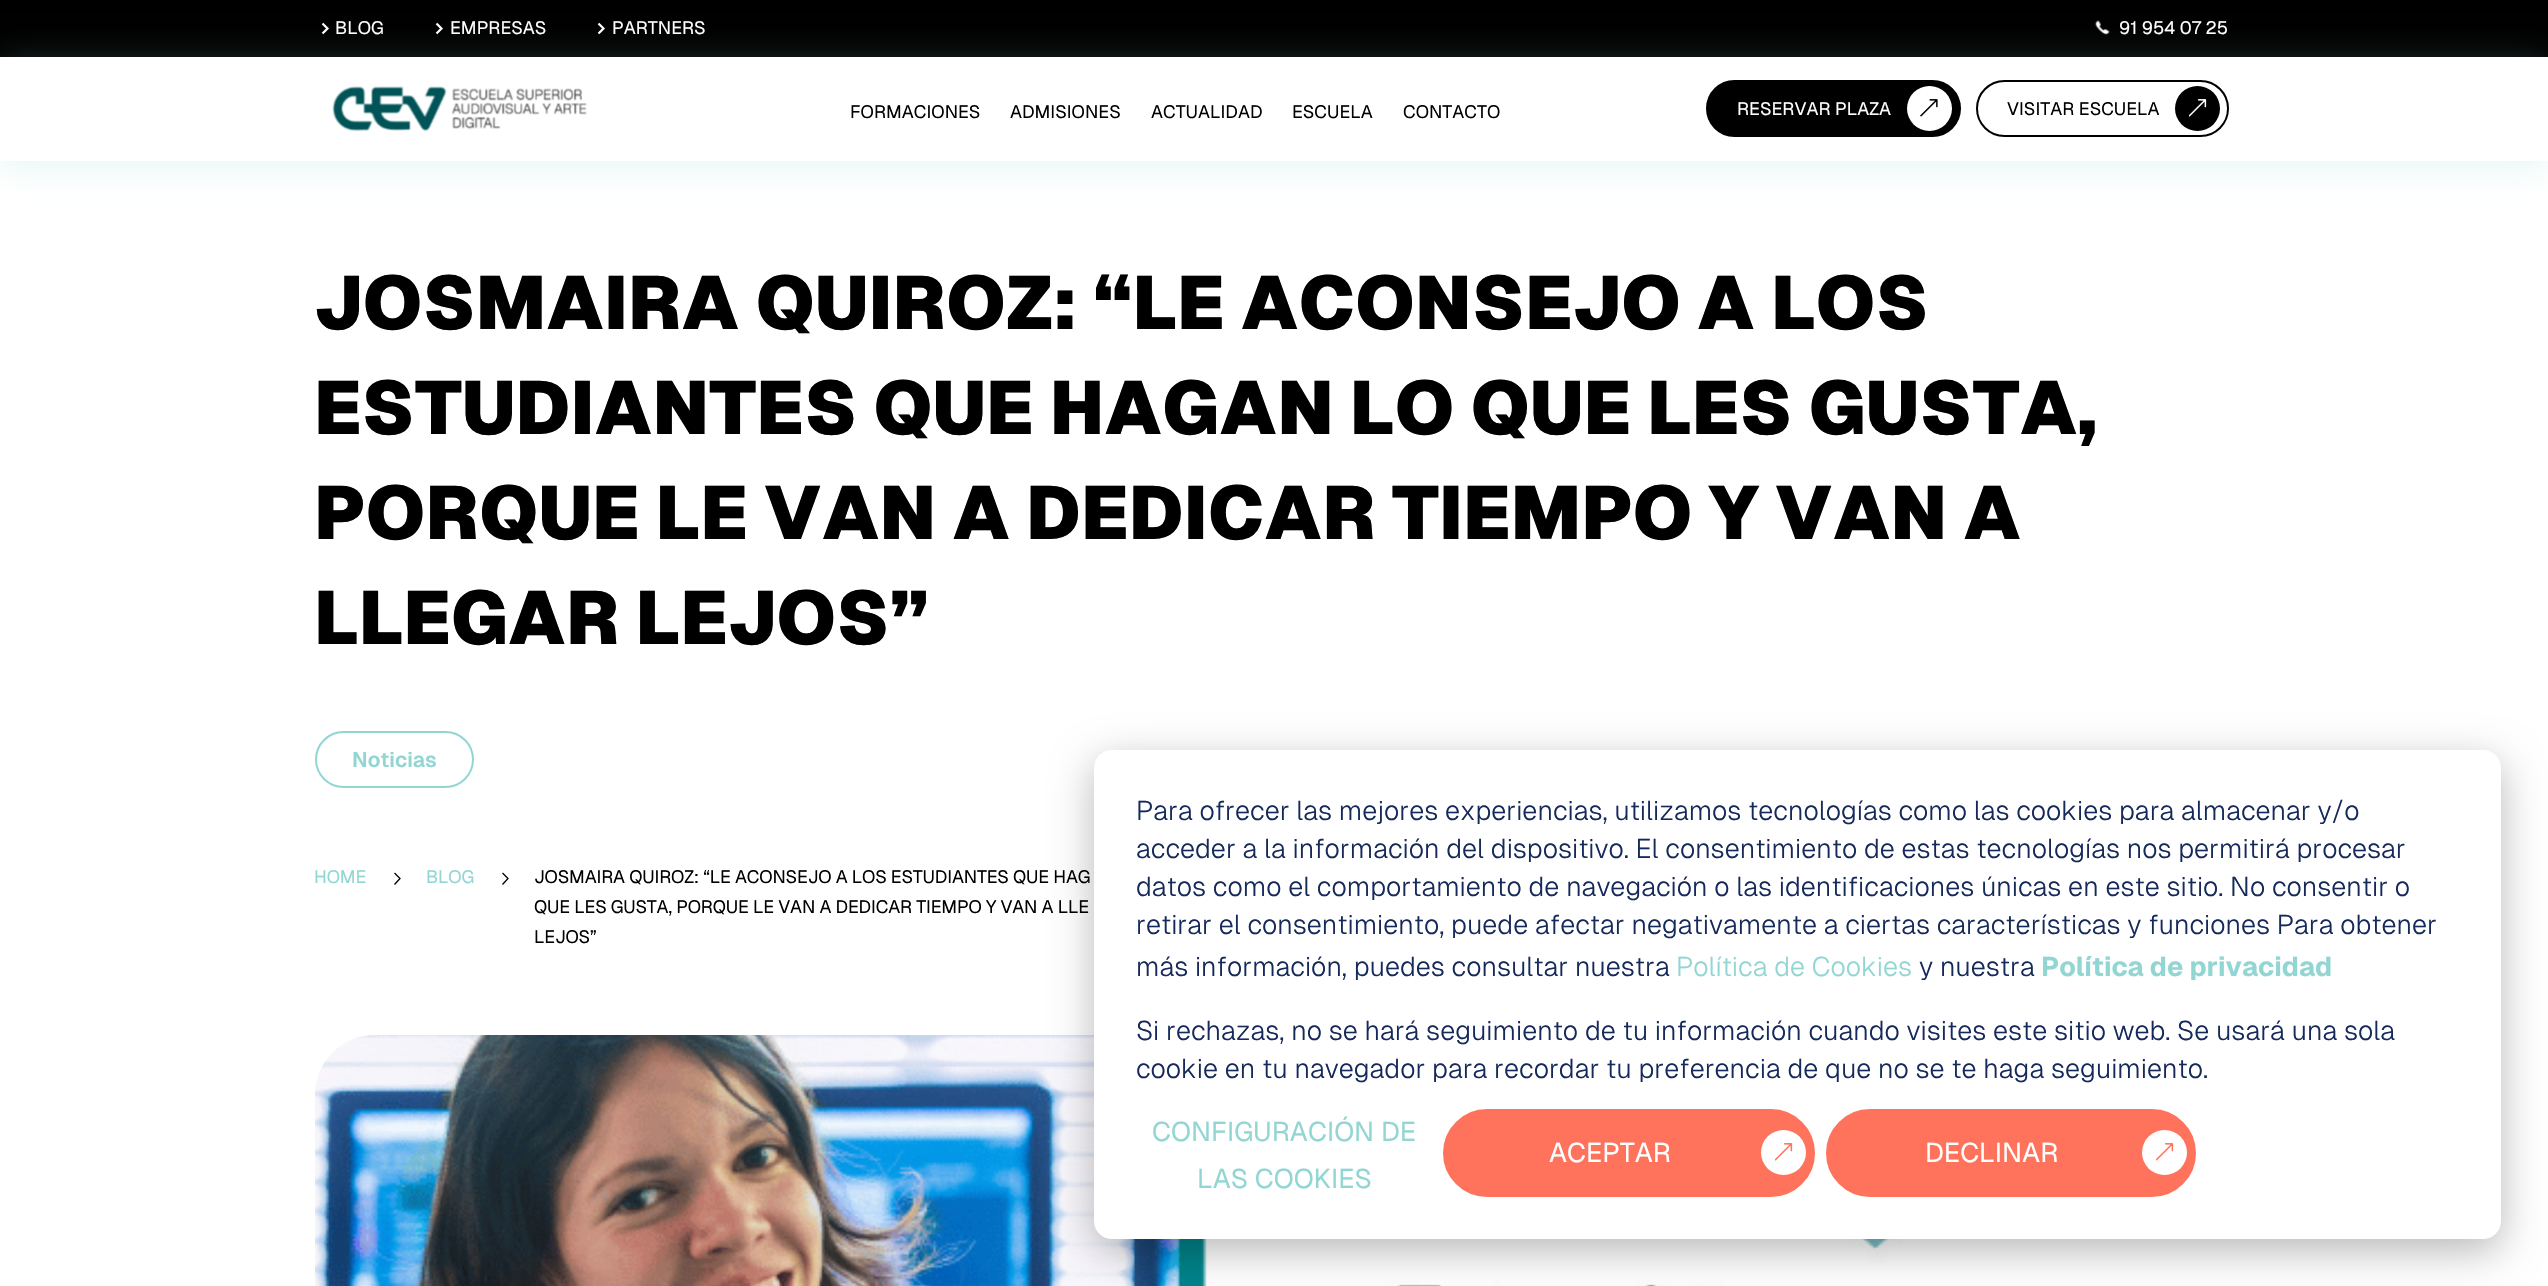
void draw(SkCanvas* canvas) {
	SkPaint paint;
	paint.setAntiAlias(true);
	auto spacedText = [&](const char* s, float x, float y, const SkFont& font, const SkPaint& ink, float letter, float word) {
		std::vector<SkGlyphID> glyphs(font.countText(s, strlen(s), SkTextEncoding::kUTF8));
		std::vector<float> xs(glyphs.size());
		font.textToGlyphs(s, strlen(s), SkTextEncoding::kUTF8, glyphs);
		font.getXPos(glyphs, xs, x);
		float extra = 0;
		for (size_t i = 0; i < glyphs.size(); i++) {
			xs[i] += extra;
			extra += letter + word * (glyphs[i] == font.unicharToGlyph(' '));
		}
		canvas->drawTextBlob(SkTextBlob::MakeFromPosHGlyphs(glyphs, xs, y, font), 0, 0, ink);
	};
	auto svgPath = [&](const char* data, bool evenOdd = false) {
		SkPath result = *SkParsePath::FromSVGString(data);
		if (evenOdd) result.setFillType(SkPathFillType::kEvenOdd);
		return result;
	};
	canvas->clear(0xffffffff);
	paint.setColor(0xff000000);
	canvas->drawRect(SkRect::MakeXYWH(0, 0, 2548, 57), paint);
	canvas->save();
	canvas->clipPath(svgPath("M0 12H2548V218H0ZM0 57H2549V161H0Z", true), true);
	paint.setColor(0x4092d6d4);
	paint.setMaskFilter(SkMaskFilter::MakeBlur(kNormal_SkBlurStyle, 16.5));
	canvas->drawRect(SkRect::MakeXYWH(0, 63, 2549, 104), paint);
	paint.setMaskFilter(nullptr);
	canvas->restore();
	paint.setStroke(true);
	paint.setStrokeWidth(2.2);
	paint.setColor(0xffffffff);
	canvas->drawPath(svgPath("M322.5 23.5L327.5 28.5L322.5 33.5"), paint);
	SkFont f1(fontMgr->matchFamilyStyle("Geist", SkFontStyle::Normal()), 18);
	f1.setSubpixel(true);
	paint.setStroke(false);
	canvas->drawString("BLOG", 335, 34, f1, paint);
	paint.setStroke(true);
	canvas->drawPath(svgPath("M436.5 23.5L441.5 28.5L436.5 33.5"), paint);
	paint.setStroke(false);
	canvas->drawString("EMPRESAS", 450, 34, f1, paint);
	paint.setStroke(true);
	canvas->drawPath(svgPath("M598.5 23.5L603.5 28.5L598.5 33.5"), paint);
	paint.setStroke(false);
	canvas->drawString("PARTNERS", 612, 34, f1, paint);
	canvas->drawImageRect(SkImages::DeferredFromEncodedData(SkData::MakeFromFileName("img1.png")), SkRect::MakeXYWH(2095, 20, 15, 15), SkSamplingOptions());
	canvas->drawString("91 954 07 25", 2119, 34, f1, paint);
	canvas->drawImageRect(SkImages::DeferredFromEncodedData(SkData::MakeFromFileName("img2.png")), SkRect::MakeXYWH(332, 86, 255, 46), SkSamplingOptions());
	paint.setColor(0xff000000);
	canvas->drawString("FORMACIONES", 850, 118, f1, paint);
	canvas->drawString("ADMISIONES", 1010, 118, f1, paint);
	canvas->drawString("ACTUALIDAD", 1151, 118, f1, paint);
	canvas->drawString("ESCUELA", 1292, 118, f1, paint);
	canvas->drawString("CONTACTO", 1403, 118, f1, paint);
	canvas->drawRoundRect(SkRect::MakeXYWH(1707, 81, 253, 55), 27.5, 27.5, paint);
	paint.setStroke(true);
	paint.setStrokeWidth(2);
	canvas->drawRoundRect(SkRect::MakeXYWH(1707, 81, 253, 55), 27.5, 27.5, paint);
	paint.setStroke(false);
	paint.setColor(0xffffffff);
	canvas->drawCircle(1929.5, 108.5, 22.5, paint);
	canvas->drawString("RESERVAR PLAZA", 1737, 115, f1, paint);
	canvas->drawImageRect(SkImages::DeferredFromEncodedData(SkData::MakeFromFileName("img3.png")), SkRect::MakeXYWH(1920, 99, 18, 18), SkSamplingOptions());
	paint.setStroke(true);
	paint.setColor(0xff000000);
	canvas->drawRoundRect(SkRect::MakeXYWH(1977, 81, 251, 55), 27.5, 27.5, paint);
	paint.setStroke(false);
	canvas->drawCircle(2197.5, 108.5, 22.5, paint);
	canvas->drawString("VISITAR ESCUELA", 2007, 115, f1, paint);
	canvas->drawImageRect(SkImages::DeferredFromEncodedData(SkData::MakeFromFileName("img4.png")), SkRect::MakeXYWH(2189, 99, 18, 18), SkSamplingOptions());
	SkFont f2(fontMgr->matchFamilyStyle("Geist", SkFontStyle(900, SkFontStyle::kNormal_Width, SkFontStyle::kUpright_Slant)), 75);
	f2.setSubpixel(true);
	canvas->drawString("JOSMAIRA QUIROZ: “LE ACONSEJO A LOS", 314, 329, f2, paint);
	canvas->drawString("ESTUDIANTES QUE HAGAN LO QUE LES GUSTA,", 314, 434, f2, paint);
	canvas->drawString("PORQUE LE VAN A DEDICAR TIEMPO Y VAN A", 314, 539, f2, paint);
	canvas->drawString("LLEGAR LEJOS”", 314, 644, f2, paint);
	paint.setStroke(true);
	paint.setColor(0xff92d6d4);
	canvas->drawRoundRect(SkRect::MakeXYWH(316, 732, 157, 55), 27.5, 27.5, paint);
	SkFont f3(fontMgr->matchFamilyStyle("Geist", SkFontStyle(600, SkFontStyle::kNormal_Width, SkFontStyle::kUpright_Slant)), 21);
	f3.setSubpixel(true);
	paint.setStroke(false);
	canvas->drawString("Noticias", 352, 767, f3, paint);
	spacedText("HOME", 314, 883, f1, paint, -0.18, 0);
	paint.setStroke(true);
	paint.setStrokeWidth(1.3);
	paint.setColor(0xff000000);
	canvas->drawPath(svgPath("M394.5 873L400 878.5L394.5 884.5"), paint);
	paint.setStroke(false);
	paint.setColor(0xff92d6d4);
	spacedText("BLOG", 426, 883, f1, paint, -0.18, 0);
	paint.setStroke(true);
	paint.setColor(0xff000000);
	canvas->drawPath(svgPath("M502.5 873L508 878.5L502.5 884.5"), paint);
	paint.setStroke(false);
	spacedText("JOSMAIRA QUIROZ: “LE ACONSEJO A LOS ESTUDIANTES QUE HAG", 534, 883, f1, paint, -0.18, 0);
	spacedText("QUE LES GUSTA, PORQUE LE VAN A DEDICAR TIEMPO Y VAN A LLE", 534, 913, f1, paint, -0.18, 0);
	spacedText("LEJOS”", 534, 943, f1, paint, -0.18, 0);
	canvas->drawImageRect(SkImages::DeferredFromEncodedData(SkData::MakeFromFileName("img5.png")), SkRect::MakeXYWH(315, 1035, 1920, 251), SkSamplingOptions());
	paint.setColor(0x47000000);
	paint.setMaskFilter(SkMaskFilter::MakeBlur(kNormal_SkBlurStyle, 21));
	canvas->drawRoundRect(SkRect::MakeXYWH(1094, 762, 1407, 489), 18, 18, paint);
	paint.setMaskFilter(nullptr);
	paint.setColor(0xffffffff);
	canvas->drawRoundRect(SkRect::MakeXYWH(1094, 750, 1407, 489), 18, 18, paint);
	SkFont f4(fontMgr->matchFamilyStyle("Geist", SkFontStyle(300, SkFontStyle::kNormal_Width, SkFontStyle::kUpright_Slant)), 27);
	f4.setSubpixel(true);
	paint.setColor(0xff15295a);
	canvas->drawString("Para ofrecer las mejores experiencias, utilizamos tecnologías como las cookies para almacenar y/o", 1136, 820, f4, paint);
	canvas->drawString("acceder a la información del dispositivo. El consentimiento de estas tecnologías nos permitirá procesar", 1136, 858, f4, paint);
	canvas->drawString("datos como el comportamiento de navegación o las identificaciones únicas en este sitio. No consentir o", 1136, 896, f4, paint);
	canvas->drawString("retirar el consentimiento, puede afectar negativamente a ciertas características y funciones Para obtener", 1136, 934, f4, paint);
	canvas->drawString("más información, puedes consultar nuestra", 1136, 976, f4, paint);
	paint.setColor(0xff92d6d4);
	canvas->drawString("Política de Cookies", 1676, 976, f4, paint);
	paint.setColor(0xff15295a);
	canvas->drawString("y nuestra", 1919, 976, f4, paint);
	SkFont f5(fontMgr->matchFamilyStyle("Geist", SkFontStyle::Bold()), 27);
	f5.setSubpixel(true);
	paint.setColor(0xff92d6d4);
	canvas->drawString("Política de privacidad", 2041, 976, f5, paint);
	paint.setColor(0xff15295a);
	canvas->drawString("Si rechazas, no se hará seguimiento de tu información cuando visites este sitio web. Se usará una sola", 1136, 1040, f4, paint);
	canvas->drawString("cookie en tu navegador para recordar tu preferencia de que no se te haga seguimiento.", 1136, 1078, f4, paint);
	SkFont f6(fontMgr->matchFamilyStyle("Geist", SkFontStyle::Normal()), 27);
	f6.setSubpixel(true);
	paint.setColor(0xff92d6d4);
	canvas->drawString("CONFIGURACIÓN DE", 1152, 1141, f6, paint);
	canvas->drawString("LAS COOKIES", 1197, 1188, f6, paint);
	paint.setColor(0xffff725c);
	canvas->drawRoundRect(SkRect::MakeXYWH(1444, 1110, 370, 86), 43, 43, paint);
	paint.setStroke(true);
	paint.setStrokeWidth(2);
	canvas->drawRoundRect(SkRect::MakeXYWH(1444, 1110, 370, 86), 43, 43, paint);
	paint.setStroke(false);
	paint.setColor(0xffffffff);
	canvas->drawString("ACEPTAR", 1549, 1162, f6, paint);
	canvas->drawCircle(1783.5, 1152.5, 22.5, paint);
	canvas->drawImageRect(SkImages::DeferredFromEncodedData(SkData::MakeFromFileName("img6.png")), SkRect::MakeXYWH(1775, 1143, 18, 18), SkSamplingOptions());
	paint.setColor(0xffff725c);
	canvas->drawRoundRect(SkRect::MakeXYWH(1827, 1110, 368, 86), 43, 43, paint);
	paint.setStroke(true);
	canvas->drawRoundRect(SkRect::MakeXYWH(1827, 1110, 368, 86), 43, 43, paint);
	paint.setStroke(false);
	paint.setColor(0xffffffff);
	canvas->drawString("DECLINAR", 1925, 1162, f6, paint);
	canvas->drawCircle(2164.5, 1152.5, 22.5, paint);
	canvas->drawImageRect(SkImages::DeferredFromEncodedData(SkData::MakeFromFileName("img6.png")), SkRect::MakeXYWH(2156, 1143, 18, 18), SkSamplingOptions());
}
